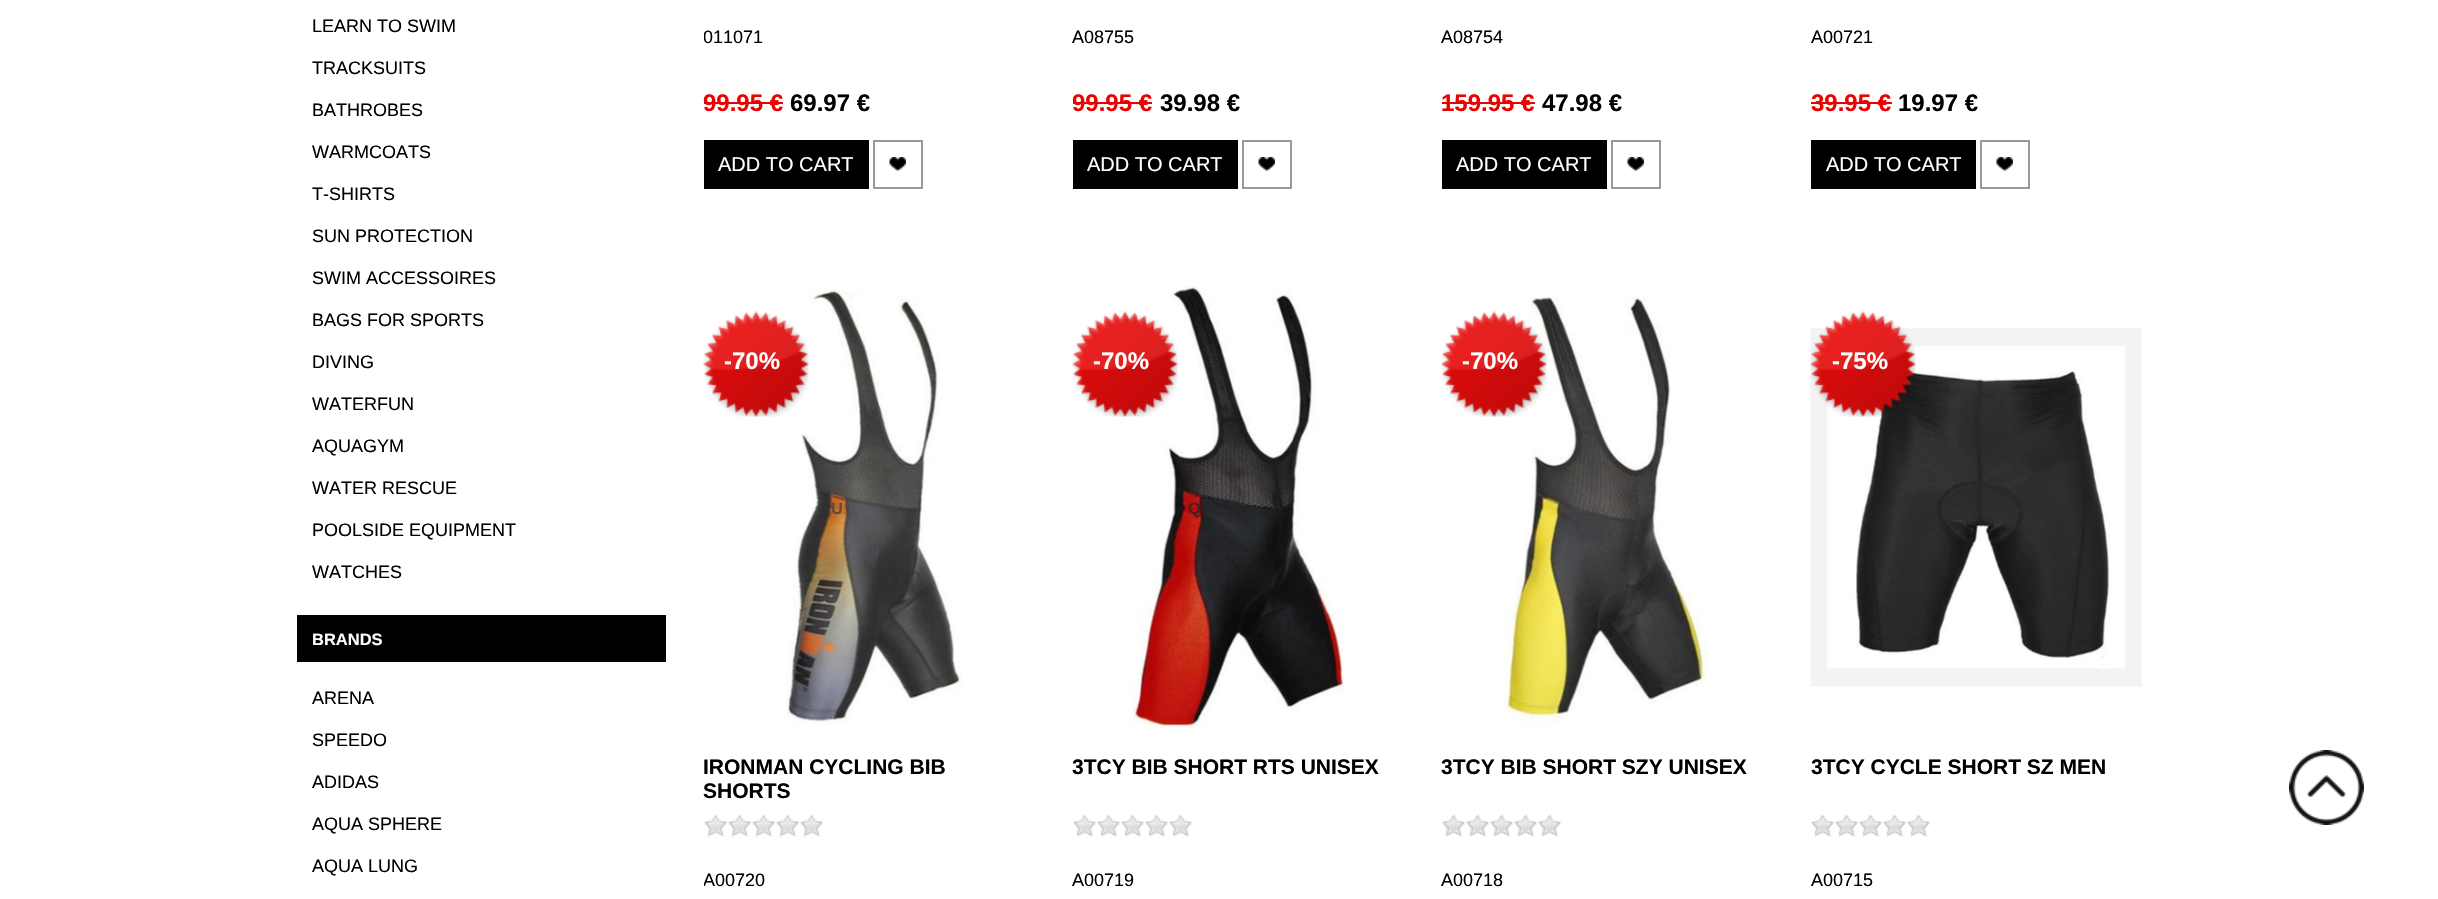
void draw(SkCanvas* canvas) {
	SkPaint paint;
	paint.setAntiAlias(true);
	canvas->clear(0xffffffff);
	SkFont f1(fontMgr->matchFamilyStyle("Liberation Sans", SkFontStyle::Normal()), 18);
	f1.setSubpixel(true);
	paint.setColor(0xff000000);
	canvas->drawString("LEARN TO SWIM", 312, 32, f1, paint);
	canvas->drawString("TRACKSUITS", 312, 74, f1, paint);
	canvas->drawString("BATHROBES", 312, 116, f1, paint);
	canvas->drawString("WARMCOATS", 312, 158, f1, paint);
	canvas->drawString("T-SHIRTS", 312, 200, f1, paint);
	canvas->drawString("SUN PROTECTION", 312, 242, f1, paint);
	canvas->drawString("SWIM ACCESSOIRES", 312, 284, f1, paint);
	canvas->drawString("BAGS FOR SPORTS", 312, 326, f1, paint);
	canvas->drawString("DIVING", 312, 368, f1, paint);
	canvas->drawString("WATERFUN", 312, 410, f1, paint);
	canvas->drawString("AQUAGYM", 312, 452, f1, paint);
	canvas->drawString("WATER RESCUE", 312, 494, f1, paint);
	canvas->drawString("POOLSIDE EQUIPMENT", 312, 536, f1, paint);
	canvas->drawString("WATCHES", 312, 578, f1, paint);
	canvas->drawRect(SkRect::MakeXYWH(297, 615, 369, 47), paint);
	SkFont f2(fontMgr->matchFamilyStyle("Liberation Sans", SkFontStyle::Bold()), 16.5);
	f2.setSubpixel(true);
	paint.setColor(0xffffffff);
	canvas->drawString("BRANDS", 312, 645, f2, paint);
	paint.setColor(0xff000000);
	canvas->drawString("ARENA", 312, 704, f1, paint);
	canvas->drawString("SPEEDO", 312, 746, f1, paint);
	canvas->drawString("ADIDAS", 312, 788, f1, paint);
	canvas->drawString("AQUA SPHERE", 312, 830, f1, paint);
	canvas->drawString("AQUA LUNG", 312, 872, f1, paint);
	canvas->save();
	canvas->clipRect(SkRect::MakeXYWH(704, 26, 330, 49));
	canvas->drawString("011071", 703, 43, f1, paint);
	canvas->restore();
	SkFont f3(fontMgr->matchFamilyStyle("Liberation Sans", SkFontStyle::Bold()), 24);
	f3.setSubpixel(true);
	paint.setColor(0xffea0100);
	canvas->drawString("99.95 €", 703, 111, f3, paint);
	canvas->drawRect(SkRect::MakeXYWH(704, 102, 79, 2), paint);
	paint.setColor(0xff000000);
	canvas->drawString("69.97 €", 790, 111, f3, paint);
	canvas->drawRect(SkRect::MakeXYWH(704, 140, 165, 49), paint);
	SkFont f4(fontMgr->matchFamilyStyle("Liberation Sans", SkFontStyle::Normal()), 20);
	f4.setSubpixel(true);
	paint.setColor(0xffffffff);
	canvas->drawString("ADD TO CART", 718, 171, f4, paint);
	canvas->drawImageRect(SkImages::DeferredFromEncodedData(SkData::MakeFromFileName("img1.png")), SkRect::MakeXYWH(889, 157, 17, 14), SkSamplingOptions());
	paint.setStroke(true);
	paint.setStrokeWidth(2);
	paint.setColor(0xff999999);
	canvas->drawRect(SkRect::MakeXYWH(874, 141, 48, 47), paint);
	paint.setStroke(false);
	paint.setColor(0xff000000);
	canvas->drawString("A08755", 1072, 43, f1, paint);
	paint.setColor(0xffea0100);
	canvas->drawString("99.95 €", 1072, 111, f3, paint);
	canvas->drawRect(SkRect::MakeXYWH(1073, 102, 79, 2), paint);
	paint.setColor(0xff000000);
	canvas->drawString("39.98 €", 1160, 111, f3, paint);
	canvas->drawRect(SkRect::MakeXYWH(1073, 140, 165, 49), paint);
	paint.setColor(0xffffffff);
	canvas->drawString("ADD TO CART", 1087, 171, f4, paint);
	canvas->drawImageRect(SkImages::DeferredFromEncodedData(SkData::MakeFromFileName("img1.png")), SkRect::MakeXYWH(1258, 157, 17, 14), SkSamplingOptions());
	paint.setStroke(true);
	paint.setColor(0xff999999);
	canvas->drawRect(SkRect::MakeXYWH(1243, 141, 48, 47), paint);
	paint.setStroke(false);
	paint.setColor(0xff000000);
	canvas->drawString("A08754", 1441, 43, f1, paint);
	paint.setColor(0xffea0100);
	canvas->drawString("159.95 €", 1441, 111, f3, paint);
	canvas->drawRect(SkRect::MakeXYWH(1442, 102, 93, 2), paint);
	paint.setColor(0xff000000);
	canvas->drawString("47.98 €", 1542, 111, f3, paint);
	canvas->drawRect(SkRect::MakeXYWH(1442, 140, 165, 49), paint);
	paint.setColor(0xffffffff);
	canvas->drawString("ADD TO CART", 1456, 171, f4, paint);
	canvas->drawImageRect(SkImages::DeferredFromEncodedData(SkData::MakeFromFileName("img1.png")), SkRect::MakeXYWH(1627, 157, 17, 14), SkSamplingOptions());
	paint.setStroke(true);
	paint.setColor(0xff999999);
	canvas->drawRect(SkRect::MakeXYWH(1612, 141, 48, 47), paint);
	paint.setStroke(false);
	paint.setColor(0xff000000);
	canvas->drawString("A00721", 1811, 43, f1, paint);
	paint.setColor(0xffea0100);
	canvas->drawString("39.95 €", 1811, 111, f3, paint);
	canvas->drawRect(SkRect::MakeXYWH(1811, 102, 81, 2), paint);
	paint.setColor(0xff000000);
	canvas->drawString("19.97 €", 1898, 111, f3, paint);
	canvas->drawRect(SkRect::MakeXYWH(1811, 140, 165, 49), paint);
	paint.setColor(0xffffffff);
	canvas->drawString("ADD TO CART", 1826, 171, f4, paint);
	canvas->drawImageRect(SkImages::DeferredFromEncodedData(SkData::MakeFromFileName("img1.png")), SkRect::MakeXYWH(1996, 157, 17, 14), SkSamplingOptions());
	paint.setStroke(true);
	paint.setColor(0xff999999);
	canvas->drawRect(SkRect::MakeXYWH(1981, 141, 48, 47), paint);
	canvas->drawImageRect(SkImages::DeferredFromEncodedData(SkData::MakeFromFileName("img3.png")), SkRect::MakeXYWH(786, 289, 176, 437), SkSamplingOptions());
	canvas->drawImageRect(SkImages::DeferredFromEncodedData(SkData::MakeFromFileName("img2.png")), SkRect::MakeXYWH(703, 311, 106, 106), SkSamplingOptions());
	paint.setStroke(false);
	paint.setColor(0xffffffff);
	canvas->drawString("-70%", 724, 369, f3, paint);
	paint.setColor(0xff5c4e44);
	canvas->drawString("U", 831, 514, f2, paint);
	SkFont f5(fontMgr->matchFamilyStyle("Liberation Sans", SkFontStyle::Bold()), 21);
	f5.setSubpixel(true);
	paint.setColor(0xff000000);
	canvas->drawString("IRONMAN CYCLING BIB", 703, 774, f5, paint);
	canvas->drawString("SHORTS", 703, 798, f5, paint);
	canvas->drawImageRect(SkImages::DeferredFromEncodedData(SkData::MakeFromFileName("img4.png")), SkRect::MakeXYWH(703, 814, 121, 23), SkSamplingOptions());
	canvas->save();
	canvas->clipRect(SkRect::MakeXYWH(704, 869, 330, 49));
	canvas->drawString("A00720", 703, 886, f1, paint);
	canvas->restore();
	canvas->drawImageRect(SkImages::DeferredFromEncodedData(SkData::MakeFromFileName("img6.png")), SkRect::MakeXYWH(1127, 285, 217, 444), SkSamplingOptions());
	canvas->drawImageRect(SkImages::DeferredFromEncodedData(SkData::MakeFromFileName("img5.png")), SkRect::MakeXYWH(1072, 311, 106, 106), SkSamplingOptions());
	paint.setColor(0xffffffff);
	canvas->drawString("-70%", 1093, 369, f3, paint);
	paint.setColor(0xff3d2324);
	canvas->drawString("Q", 1188, 514, f2, paint);
	paint.setColor(0xff000000);
	canvas->drawString("3TCY BIB SHORT RTS UNISEX", 1072, 774, f5, paint);
	canvas->drawImageRect(SkImages::DeferredFromEncodedData(SkData::MakeFromFileName("img7.png")), SkRect::MakeXYWH(1072, 814, 121, 23), SkSamplingOptions());
	canvas->drawString("A00719", 1072, 886, f1, paint);
	canvas->drawImageRect(SkImages::DeferredFromEncodedData(SkData::MakeFromFileName("img9.png")), SkRect::MakeXYWH(1502, 297, 205, 429), SkSamplingOptions());
	canvas->drawImageRect(SkImages::DeferredFromEncodedData(SkData::MakeFromFileName("img8.png")), SkRect::MakeXYWH(1441, 311, 106, 106), SkSamplingOptions());
	paint.setColor(0xffffffff);
	canvas->drawString("-70%", 1462, 369, f3, paint);
	paint.setColor(0xff000000);
	canvas->drawString("3TCY BIB SHORT SZY UNISEX", 1441, 774, f5, paint);
	canvas->drawImageRect(SkImages::DeferredFromEncodedData(SkData::MakeFromFileName("img10.png")), SkRect::MakeXYWH(1441, 814, 121, 23), SkSamplingOptions());
	canvas->drawString("A00718", 1441, 886, f1, paint);
	canvas->drawImageRect(SkImages::DeferredFromEncodedData(SkData::MakeFromFileName("img11.png")), SkRect::MakeXYWH(1810, 328, 332, 359), SkSamplingOptions());
	canvas->drawImageRect(SkImages::DeferredFromEncodedData(SkData::MakeFromFileName("img12.png")), SkRect::MakeXYWH(1810, 311, 106, 106), SkSamplingOptions());
	paint.setColor(0xffffffff);
	canvas->drawString("-75%", 1832, 369, f3, paint);
	paint.setColor(0xff000000);
	canvas->drawString("3TCY CYCLE SHORT SZ MEN", 1811, 774, f5, paint);
	canvas->drawImageRect(SkImages::DeferredFromEncodedData(SkData::MakeFromFileName("img13.png")), SkRect::MakeXYWH(1810, 814, 121, 23), SkSamplingOptions());
	canvas->drawString("A00715", 1811, 886, f1, paint);
	canvas->drawImageRect(SkImages::DeferredFromEncodedData(SkData::MakeFromFileName("img14.png")), SkRect::MakeXYWH(2289, 750, 75, 75), SkSamplingOptions());
}
